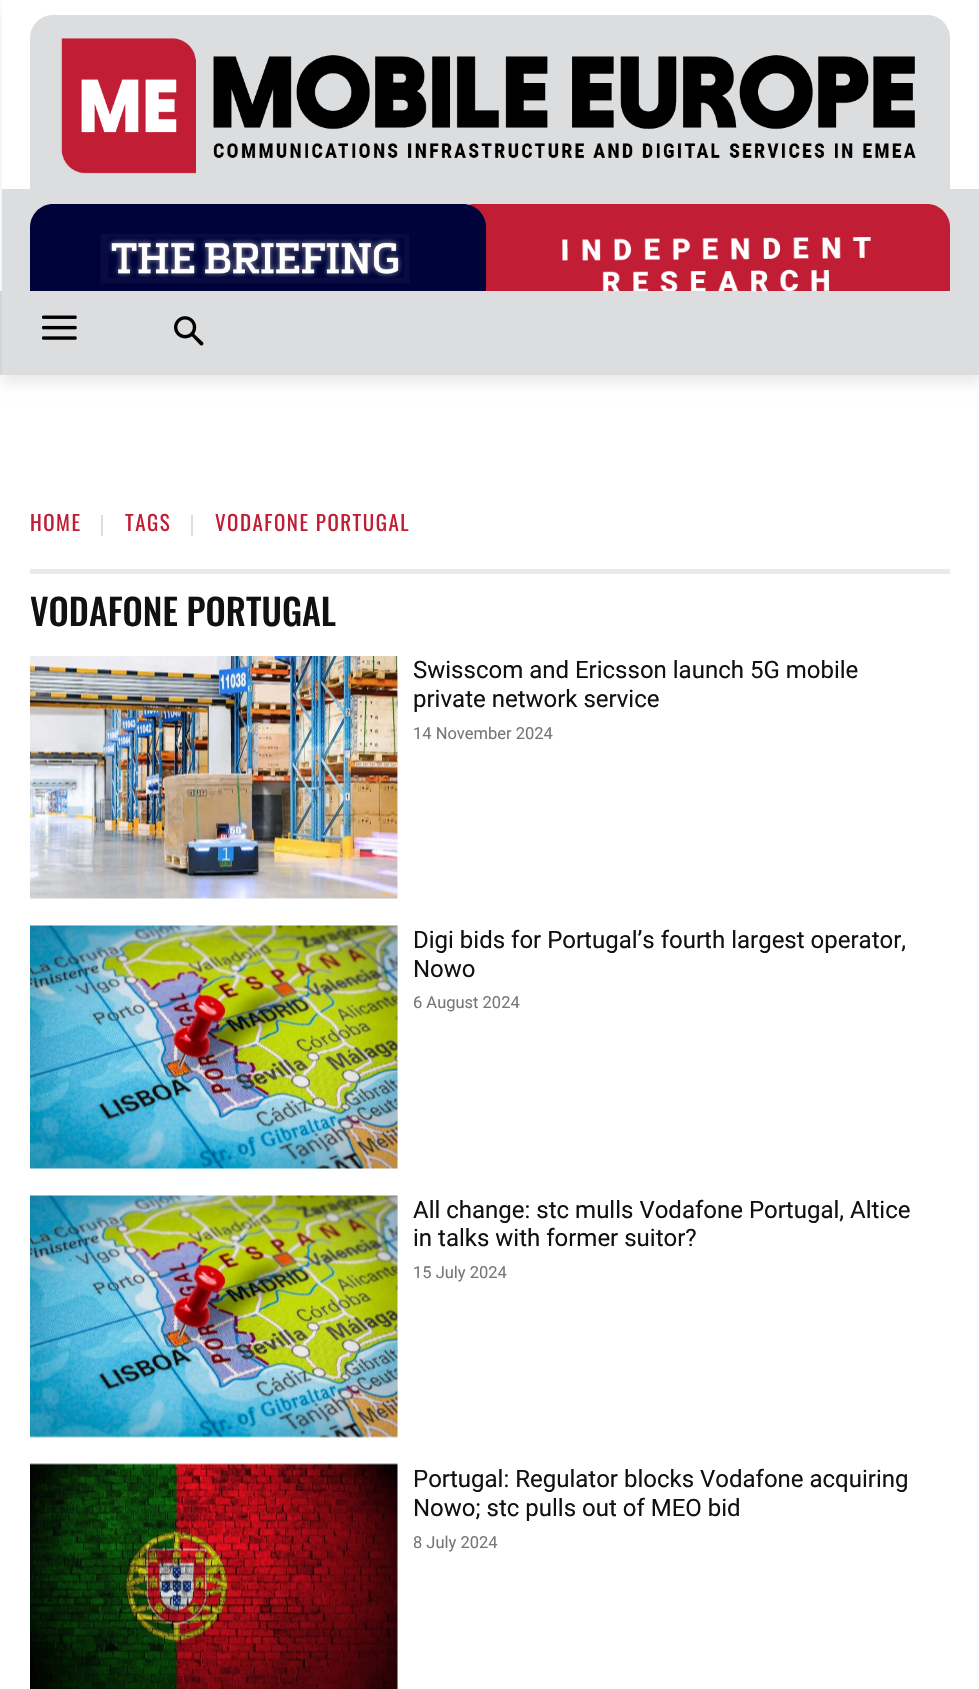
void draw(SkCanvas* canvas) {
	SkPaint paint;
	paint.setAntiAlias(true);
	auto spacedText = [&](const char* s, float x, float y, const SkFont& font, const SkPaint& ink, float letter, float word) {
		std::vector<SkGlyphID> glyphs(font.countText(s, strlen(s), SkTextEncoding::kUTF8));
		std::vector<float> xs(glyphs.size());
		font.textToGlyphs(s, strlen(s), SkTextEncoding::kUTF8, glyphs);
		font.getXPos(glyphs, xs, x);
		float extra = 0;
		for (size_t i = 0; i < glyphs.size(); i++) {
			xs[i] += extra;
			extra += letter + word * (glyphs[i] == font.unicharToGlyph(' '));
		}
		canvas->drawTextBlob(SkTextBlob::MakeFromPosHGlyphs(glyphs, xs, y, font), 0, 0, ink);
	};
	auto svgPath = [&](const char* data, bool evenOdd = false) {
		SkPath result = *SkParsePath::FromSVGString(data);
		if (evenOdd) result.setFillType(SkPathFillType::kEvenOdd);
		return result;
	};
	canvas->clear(0xffffffff);
	paint.setColor(0xffdcdddf);
	canvas->drawPath(svgPath("M53 15H927C939.5 15 950 25.5 950 38V234H30V38C30 25.5 40.5 15 53 15Z"), paint);
	canvas->drawImageRect(SkImages::DeferredFromEncodedData(SkData::MakeFromFileName("img1.png")), SkRect::MakeXYWH(61, 38, 855, 136), SkSamplingOptions());
	canvas->drawRect(SkRect::MakeXYWH(2, 189, 977, 186), paint);
	paint.setColor(0xffc11e35);
	canvas->drawPath(svgPath("M475 204H927C939.5 204 950 214.5 950 227V291H452V227C452 214.5 462.5 204 475 204Z"), paint);
	paint.setColor(0xff00023a);
	canvas->drawPath(svgPath("M53 204H463C475.5 204 486 214.5 486 227V375H30V227C30 214.5 40.5 204 53 204Z"), paint);
	canvas->drawImageRect(SkImages::DeferredFromEncodedData(SkData::MakeFromFileName("img2.png")), SkRect::MakeXYWH(100, 234, 310, 50), SkSamplingOptions());
	canvas->drawImageRect(SkImages::DeferredFromEncodedData(SkData::MakeFromFileName("img5.png")), SkRect::MakeXYWH(562, 237, 309, 55), SkSamplingOptions());
	paint.setColor(0xffdcdddf);
	canvas->drawRect(SkRect::MakeXYWH(0, 291, 738, 84), paint);
	canvas->drawImageRect(SkImages::DeferredFromEncodedData(SkData::MakeFromFileName("img3.png")), SkRect::MakeXYWH(42, 315, 35, 25), SkSamplingOptions());
	canvas->drawImageRect(SkImages::DeferredFromEncodedData(SkData::MakeFromFileName("img4.png")), SkRect::MakeXYWH(174, 316, 30, 30), SkSamplingOptions());
	canvas->save();
	canvas->clipPath(svgPath("M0 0H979V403H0ZM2 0H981V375H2Z", true), true);
	paint.setColor(0x14000000);
	paint.setMaskFilter(SkMaskFilter::MakeBlur(kNormal_SkBlurStyle, 6));
	canvas->drawRect(SkRect::MakeXYWH(2, 9, 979, 375), paint);
	paint.setMaskFilter(nullptr);
	canvas->restore();
	SkFont f1(fontMgr->matchFamilyStyle("Oswald", SkFontStyle::Normal()), 21);
	f1.setSubpixel(true);
	paint.setColor(0xffc11e35);
	spacedText("HOME", 30, 531, f1, paint, 1.5, 0);
	paint.setColor(0xffdddddd);
	canvas->drawRect(SkRect::MakeXYWH(101, 515, 2, 21), paint);
	paint.setColor(0xffc11e35);
	spacedText("TAGS", 125, 531, f1, paint, 1.5, 0);
	paint.setColor(0xffdddddd);
	canvas->drawRect(SkRect::MakeXYWH(191, 515, 2, 21), paint);
	paint.setColor(0xffc11e35);
	spacedText("VODAFONE PORTUGAL", 215, 531, f1, paint, 1.5, 0);
	paint.setColor(0xffeaeaea);
	canvas->drawRect(SkRect::MakeXYWH(30, 569, 920, 5), paint);
	SkFont f2(fontMgr->matchFamilyStyle("Oswald", SkFontStyle(500, SkFontStyle::kNormal_Width, SkFontStyle::kUpright_Slant)), 36);
	f2.setSubpixel(true);
	paint.setColor(0xff111111);
	canvas->drawString("VODAFONE PORTUGAL", 30, 626, f2, paint);
	canvas->drawImageRect(SkImages::DeferredFromEncodedData(SkData::MakeFromFileName("img6.png")), SkRect::MakeXYWH(30, 656, 368, 243), SkSamplingOptions());
	SkFont f3(fontMgr->matchFamilyStyle("Roboto", SkFontStyle::Normal()), 24);
	f3.setSubpixel(true);
	canvas->drawString("Swisscom and Ericsson launch 5G mobile", 413, 678, f3, paint);
	canvas->drawString("private network service", 413, 707, f3, paint);
	SkFont f4(fontMgr->matchFamilyStyle("Roboto", SkFontStyle::Normal()), 16.5);
	f4.setSubpixel(true);
	paint.setColor(0xff767676);
	canvas->drawString("14 November 2024", 413, 739, f4, paint);
	canvas->drawImageRect(SkImages::DeferredFromEncodedData(SkData::MakeFromFileName("img7.png")), SkRect::MakeXYWH(30, 925, 368, 244), SkSamplingOptions());
	paint.setColor(0xff111111);
	canvas->drawString("Digi bids for Portugal’s fourth largest operator,", 413, 948, f3, paint);
	canvas->drawString("Nowo", 413, 977, f3, paint);
	paint.setColor(0xff767676);
	canvas->drawString("6 August 2024", 413, 1008, f4, paint);
	canvas->drawImageRect(SkImages::DeferredFromEncodedData(SkData::MakeFromFileName("img8.png")), SkRect::MakeXYWH(30, 1195, 368, 243), SkSamplingOptions());
	paint.setColor(0xff111111);
	canvas->drawString("All change: stc mulls Vodafone Portugal, Altice", 413, 1218, f3, paint);
	canvas->drawString("in talks with former suitor?", 413, 1246, f3, paint);
	paint.setColor(0xff767676);
	canvas->drawString("15 July 2024", 413, 1278, f4, paint);
	canvas->drawImageRect(SkImages::DeferredFromEncodedData(SkData::MakeFromFileName("img9.png")), SkRect::MakeXYWH(30, 1463, 368, 226), SkSamplingOptions());
	paint.setColor(0xff111111);
	canvas->drawString("Portugal: Regulator blocks Vodafone acquiring", 413, 1487, f3, paint);
	canvas->drawString("Nowo; stc pulls out of MEO bid", 413, 1516, f3, paint);
	paint.setColor(0xff767676);
	canvas->drawString("8 July 2024", 413, 1548, f4, paint);
}
